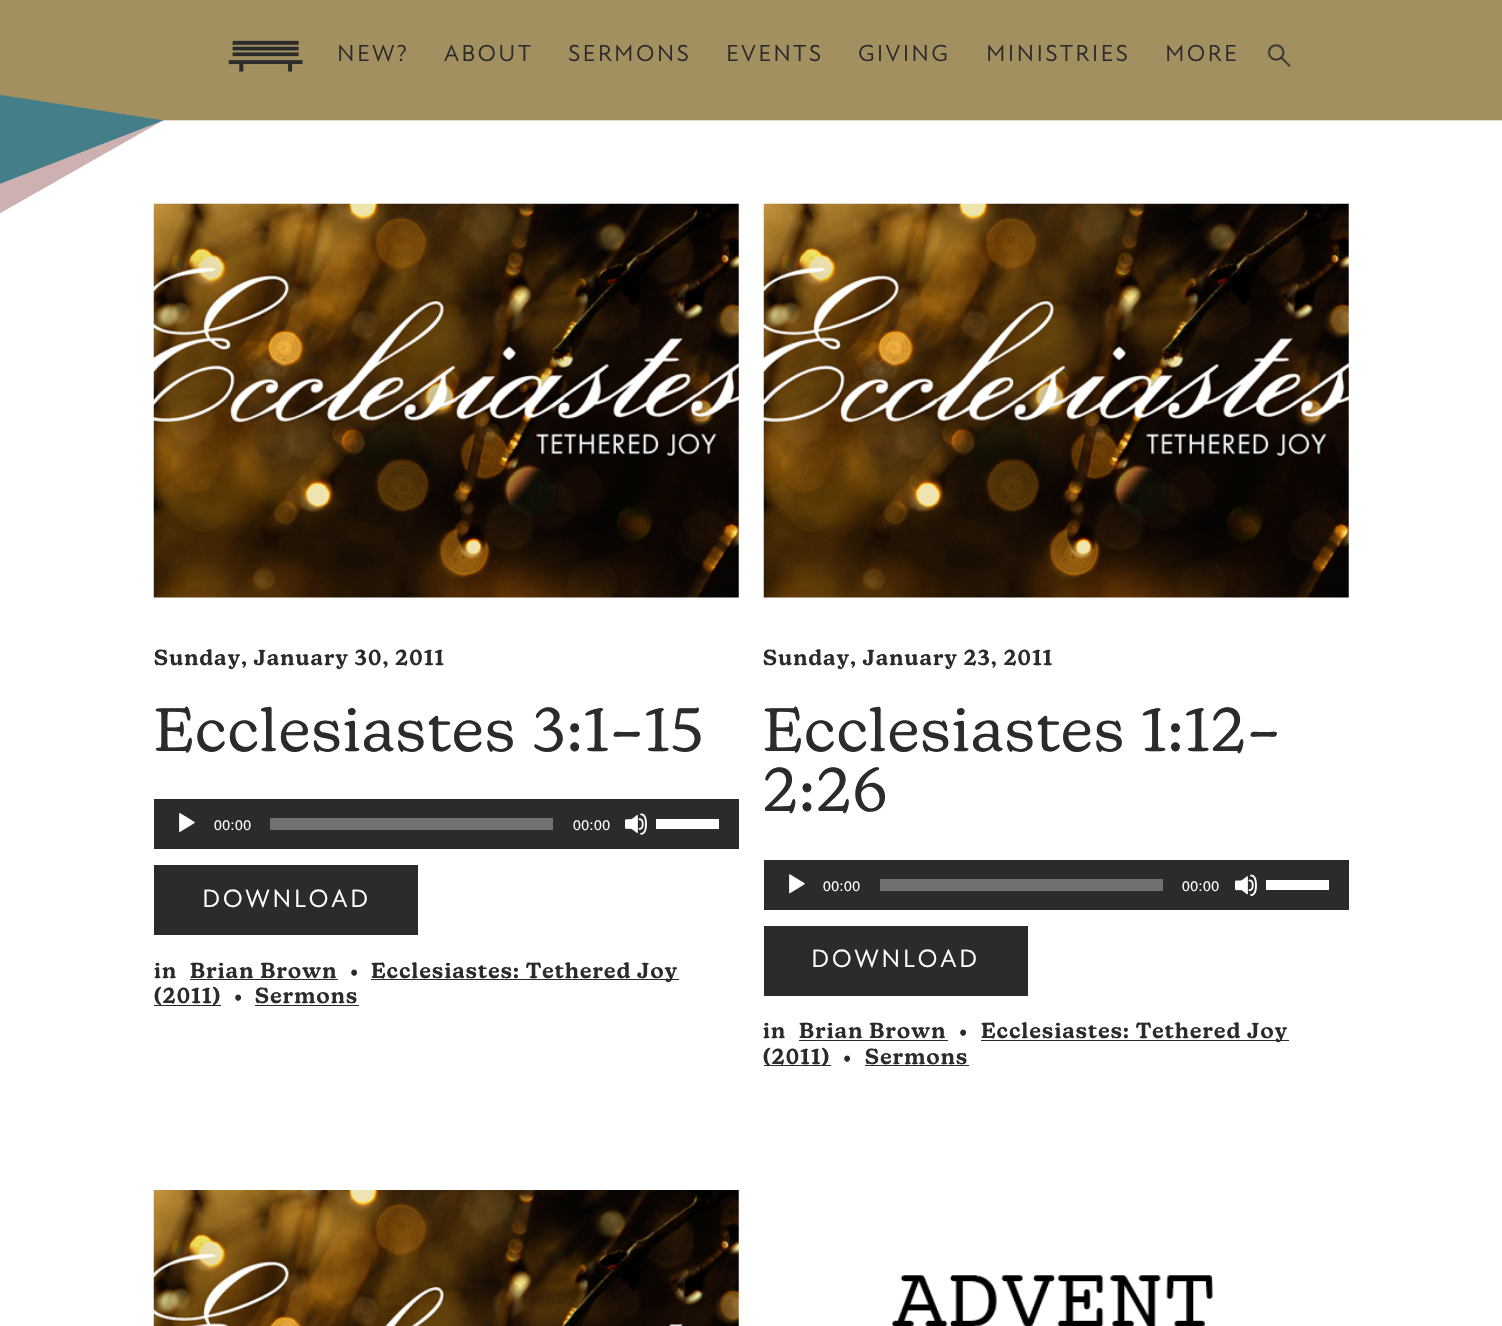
void draw(SkCanvas* canvas) {
	SkPaint paint;
	paint.setAntiAlias(true);
	auto spacedText = [&](const char* s, float x, float y, const SkFont& font, const SkPaint& ink, float letter, float word) {
		std::vector<SkGlyphID> glyphs(font.countText(s, strlen(s), SkTextEncoding::kUTF8));
		std::vector<float> xs(glyphs.size());
		font.textToGlyphs(s, strlen(s), SkTextEncoding::kUTF8, glyphs);
		font.getXPos(glyphs, xs, x);
		float extra = 0;
		for (size_t i = 0; i < glyphs.size(); i++) {
			xs[i] += extra;
			extra += letter + word * (glyphs[i] == font.unicharToGlyph(' '));
		}
		canvas->drawTextBlob(SkTextBlob::MakeFromPosHGlyphs(glyphs, xs, y, font), 0, 0, ink);
	};
	canvas->clear(0xffffffff);
	paint.setColor(0xffa39061);
	canvas->drawRect(SkRect::MakeXYWH(0, 0, 1502, 95), paint);
	canvas->drawImageRect(SkImages::DeferredFromEncodedData(SkData::MakeFromFileName("img1.png")), SkRect::MakeXYWH(228, 40, 75, 32), SkSamplingOptions());
	SkFont f1(fontMgr->matchFamilyStyle("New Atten", SkFontStyle::Normal()), 23.5);
	f1.setSubpixel(true);
	paint.setColor(0xff2b2b2b);
	spacedText("NEW?", 337, 61, f1, paint, 2.25, 0);
	spacedText("ABOUT", 444, 61, f1, paint, 2.25, 0);
	spacedText("SERMONS", 568, 61, f1, paint, 2.25, 0);
	spacedText("EVENTS", 726, 61, f1, paint, 2.25, 0);
	spacedText("GIVING", 858, 61, f1, paint, 2.25, 0);
	spacedText("MINISTRIES", 986, 61, f1, paint, 2.25, 0);
	spacedText("MORE", 1165, 61, f1, paint, 2.25, 0);
	canvas->drawImageRect(SkImages::DeferredFromEncodedData(SkData::MakeFromFileName("img2.png")), SkRect::MakeXYWH(1267, 43, 24, 25), SkSamplingOptions());
	canvas->drawImageRect(SkImages::DeferredFromEncodedData(SkData::MakeFromFileName("img4.png")), SkRect::MakeXYWH(153, 203, 586, 395), SkSamplingOptions());
	canvas->drawImageRect(SkImages::DeferredFromEncodedData(SkData::MakeFromFileName("img7.png")), SkRect::MakeXYWH(763, 203, 586, 395), SkSamplingOptions());
	canvas->drawImageRect(SkImages::DeferredFromEncodedData(SkData::MakeFromFileName("img3.png")), SkRect::MakeXYWH(0, 95, 1502, 118), SkSamplingOptions());
	SkFont f2(fontMgr->matchFamilyStyle("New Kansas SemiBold", SkFontStyle(600, SkFontStyle::kNormal_Width, SkFontStyle::kUpright_Slant)), 21.25);
	f2.setSubpixel(true);
	spacedText("Sunday, January 30, 2011", 154, 665, f2, paint, 1.25, 0);
	SkFont f3(fontMgr->matchFamilyStyle("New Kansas", SkFontStyle::Normal()), 60.5);
	f3.setSubpixel(true);
	spacedText("Ecclesiastes 3:1–15", 154, 751, f3, paint, 1.8, 0);
	canvas->drawRect(SkRect::MakeXYWH(154, 799, 585, 50), paint);
	canvas->drawImageRect(SkImages::DeferredFromEncodedData(SkData::MakeFromFileName("img5.png")), SkRect::MakeXYWH(179, 813, 16, 19), SkSamplingOptions());
	SkFont f4(fontMgr->matchFamilyStyle("Liberation Sans", SkFontStyle::Normal()), 14);
	f4.setSubpixel(true);
	paint.setColor(0xffffffff);
	spacedText("00:00", 214, 830, f4, paint, 0.5, 0);
	paint.setColor(0xff717171);
	canvas->drawRect(SkRect::MakeXYWH(270, 818, 283, 12), paint);
	paint.setColor(0xffffffff);
	spacedText("00:00", 573, 830, f4, paint, 0.5, 0);
	canvas->drawImageRect(SkImages::DeferredFromEncodedData(SkData::MakeFromFileName("img6.png")), SkRect::MakeXYWH(625, 813, 22, 22), SkSamplingOptions());
	canvas->drawRect(SkRect::MakeXYWH(656, 819, 63, 10), paint);
	paint.setColor(0xff2b2b2b);
	canvas->drawRect(SkRect::MakeXYWH(154, 865, 264, 70), paint);
	SkFont f5(fontMgr->matchFamilyStyle("New Atten", SkFontStyle::Normal()), 25.5);
	f5.setSubpixel(true);
	paint.setColor(0xffffffff);
	spacedText("DOWNLOAD", 202, 907, f5, paint, 2.5, 0);
	paint.setColor(0xff2b2b2b);
	spacedText("in", 154, 978, f2, paint, 1.25, 0);
	spacedText("Brian Brown", 190, 978, f2, paint, 1.25, 0);
	canvas->drawRect(SkRect::MakeXYWH(190, 979, 148, 1), paint);
	spacedText("•", 350, 978, f2, paint, 1.25, 0);
	canvas->drawRect(SkRect::MakeXYWH(371, 979, 308, 1), paint);
	spacedText("Ecclesiastes: Tethered Joy", 371, 978, f2, paint, 1.25, 0);
	canvas->drawRect(SkRect::MakeXYWH(154, 1005, 67, 1), paint);
	spacedText("(2011)", 154, 1003, f2, paint, 1.25, 0);
	spacedText("•", 234, 1003, f2, paint, 1.25, 0);
	spacedText("Sermons", 255, 1003, f2, paint, 1.25, 0);
	canvas->drawRect(SkRect::MakeXYWH(255, 1005, 104, 1), paint);
	spacedText("Sunday, January 23, 2011", 763, 665, f2, paint, 1.25, 0);
	spacedText("Ecclesiastes 1:12–", 763, 751, f3, paint, 1.8, 0);
	spacedText("2:26", 763, 811, f3, paint, 1.8, 0);
	canvas->drawRect(SkRect::MakeXYWH(764, 860, 585, 50), paint);
	canvas->drawImageRect(SkImages::DeferredFromEncodedData(SkData::MakeFromFileName("img8.png")), SkRect::MakeXYWH(789, 874, 16, 20), SkSamplingOptions());
	paint.setColor(0xffffffff);
	spacedText("00:00", 823, 891, f4, paint, 0.5, 0);
	paint.setColor(0xff717171);
	canvas->drawRect(SkRect::MakeXYWH(880, 879, 283, 12), paint);
	paint.setColor(0xffffffff);
	spacedText("00:00", 1182, 891, f4, paint, 0.5, 0);
	canvas->drawImageRect(SkImages::DeferredFromEncodedData(SkData::MakeFromFileName("img9.png")), SkRect::MakeXYWH(1235, 874, 22, 22), SkSamplingOptions());
	canvas->drawRect(SkRect::MakeXYWH(1266, 880, 63, 10), paint);
	paint.setColor(0xff2b2b2b);
	canvas->drawRect(SkRect::MakeXYWH(764, 926, 264, 70), paint);
	paint.setColor(0xffffffff);
	spacedText("DOWNLOAD", 811, 967, f5, paint, 2.5, 0);
	paint.setColor(0xff2b2b2b);
	spacedText("in", 763, 1038, f2, paint, 1.25, 0);
	spacedText("Brian Brown", 799, 1038, f2, paint, 1.25, 0);
	canvas->drawRect(SkRect::MakeXYWH(799, 1040, 149, 1), paint);
	spacedText("•", 959, 1038, f2, paint, 1.25, 0);
	canvas->drawRect(SkRect::MakeXYWH(981, 1040, 308, 1), paint);
	spacedText("Ecclesiastes: Tethered Joy", 981, 1038, f2, paint, 1.25, 0);
	canvas->drawRect(SkRect::MakeXYWH(764, 1065, 67, 1), paint);
	spacedText("(2011)", 763, 1064, f2, paint, 1.25, 0);
	spacedText("•", 843, 1064, f2, paint, 1.25, 0);
	spacedText("Sermons", 865, 1064, f2, paint, 1.25, 0);
	canvas->drawRect(SkRect::MakeXYWH(865, 1065, 104, 1), paint);
	canvas->drawImageRect(SkImages::DeferredFromEncodedData(SkData::MakeFromFileName("img10.png")), SkRect::MakeXYWH(153, 1190, 586, 136), SkSamplingOptions());
	canvas->drawImageRect(SkImages::DeferredFromEncodedData(SkData::MakeFromFileName("img11.png")), SkRect::MakeXYWH(892, 1275, 322, 51), SkSamplingOptions());
}
